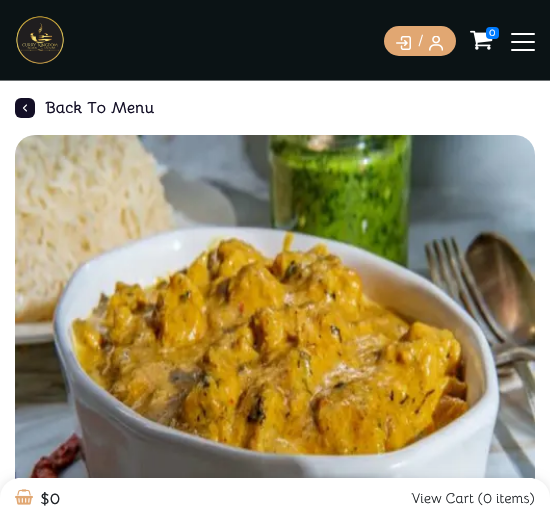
void draw(SkCanvas* canvas) {
	SkPaint paint;
	paint.setAntiAlias(true);
	auto svgPath = [&](const char* data, bool evenOdd = false) {
		SkPath result = *SkParsePath::FromSVGString(data);
		if (evenOdd) result.setFillType(SkPathFillType::kEvenOdd);
		return result;
	};
	canvas->clear(0xffffffff);
	paint.setColor(0xff0b1315);
	canvas->drawRect(SkRect::MakeXYWH(0, 0, 550, 80), paint);
	paint.setColor(0xff6d7173);
	canvas->drawRect(SkRect::MakeXYWH(0, 80, 550, 1), paint);
	canvas->drawImageRect(SkImages::DeferredFromEncodedData(SkData::MakeFromFileName("img1.png")), SkRect::MakeXYWH(16, 16, 48, 48), SkSamplingOptions());
	paint.setColor(0xffe1a772);
	canvas->drawRoundRect(SkRect::MakeXYWH(384, 26, 72, 30), 15, 15, paint);
	canvas->drawImageRect(SkImages::DeferredFromEncodedData(SkData::MakeFromFileName("img2.png")), SkRect::MakeXYWH(396, 36, 15, 14), SkSamplingOptions());
	paint.setColor(0xffffffff);
	canvas->drawPath(svgPath("M422 34.5L423 35L419.5 46.5L418.5 46Z"), paint);
	canvas->drawImageRect(SkImages::DeferredFromEncodedData(SkData::MakeFromFileName("img3.png")), SkRect::MakeXYWH(429, 36, 14, 15), SkSamplingOptions());
	canvas->drawImageRect(SkImages::DeferredFromEncodedData(SkData::MakeFromFileName("img4.png")), SkRect::MakeXYWH(470, 30, 23, 20), SkSamplingOptions());
	paint.setColor(0xff007bff);
	canvas->drawRoundRect(SkRect::MakeXYWH(486, 27, 13, 12), 4, 4, paint);
	SkFont f1(fontMgr->matchFamilyStyle("Bellota", SkFontStyle::Bold()), 10);
	f1.setSubpixel(true);
	paint.setColor(0xffffffff);
	canvas->drawString("0", 489, 36, f1, paint);
	canvas->drawRoundRect(SkRect::MakeXYWH(511, 33, 24, 2), 1, 1, paint);
	canvas->drawRoundRect(SkRect::MakeXYWH(511, 41, 24, 2), 1, 1, paint);
	canvas->drawRoundRect(SkRect::MakeXYWH(511, 49, 24, 2), 1, 1, paint);
	paint.setColor(0xff130f26);
	canvas->drawRoundRect(SkRect::MakeXYWH(15, 98, 20, 20), 6, 6, paint);
	paint.setStroke(true);
	paint.setStrokeWidth(1.1);
	paint.setStrokeCap(SkPaint::kRound_Cap);
	paint.setStrokeJoin(SkPaint::kRound_Join);
	paint.setColor(0xffffffff);
	canvas->drawPath(svgPath("M26.5 111L23.5 108L26.5 105"), paint);
	SkFont f2(fontMgr->matchFamilyStyle("Bellota", SkFontStyle::Bold()), 16);
	f2.setSubpixel(true);
	paint.setStroke(false);
	paint.setColor(0xff130f26);
	canvas->drawString("Back To Menu", 45, 113, f2, paint);
	canvas->drawImageRect(SkImages::DeferredFromEncodedData(SkData::MakeFromFileName("img5.png")), SkRect::MakeXYWH(15, 135, 520, 344), SkSamplingOptions());
	paint.setColor(0x1a000000);
	paint.setMaskFilter(SkMaskFilter::MakeBlur(kNormal_SkBlurStyle, 5));
	canvas->drawRoundRect(SkRect::MakeXYWH(0, 478, 550, 41), 20, 20, paint);
	paint.setMaskFilter(nullptr);
	paint.setColor(0xffffffff);
	canvas->drawPath(svgPath("M20 478H530C541 478 550 487 550 498V519H0V498C0 487 9 478 20 478Z"), paint);
	canvas->drawImageRect(SkImages::DeferredFromEncodedData(SkData::MakeFromFileName("img6.png")), SkRect::MakeXYWH(15, 489, 18, 16), SkSamplingOptions());
	paint.setColor(0xff212529);
	canvas->drawString("$0", 40, 504, f2, paint);
	SkFont f3(fontMgr->matchFamilyStyle("Bellota", SkFontStyle::Normal()), 14);
	f3.setSubpixel(true);
	canvas->drawString("View Cart (0 items)", 411, 503, f3, paint);
}
